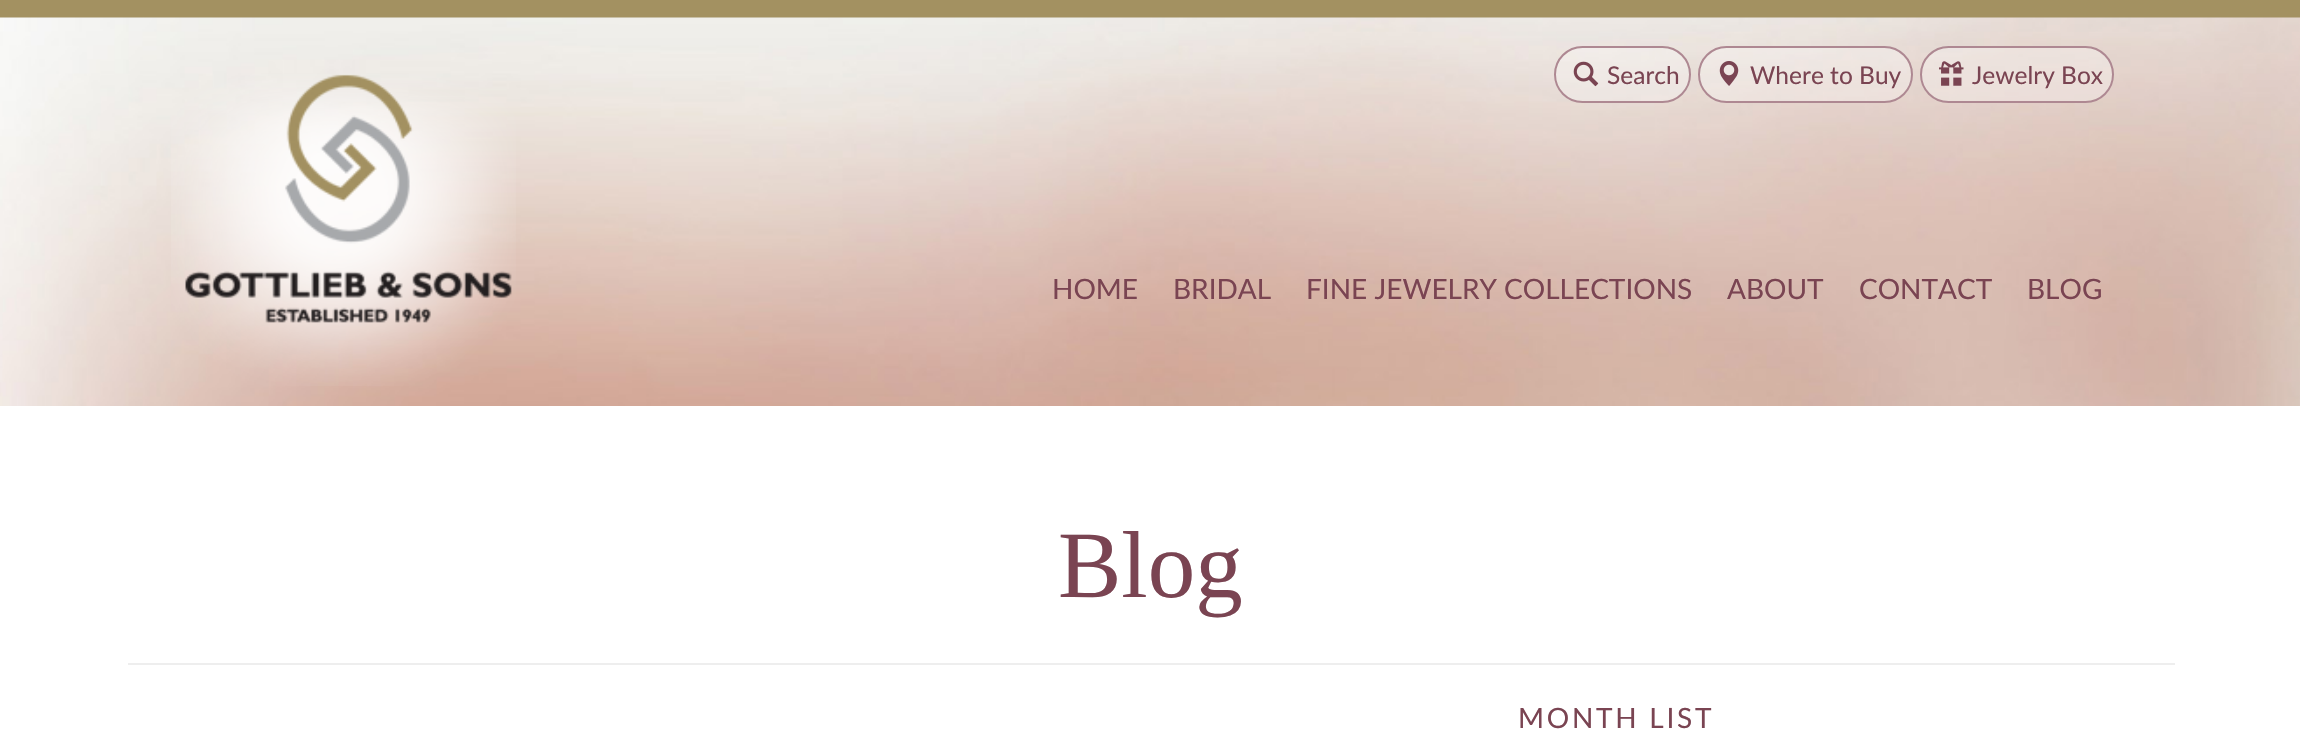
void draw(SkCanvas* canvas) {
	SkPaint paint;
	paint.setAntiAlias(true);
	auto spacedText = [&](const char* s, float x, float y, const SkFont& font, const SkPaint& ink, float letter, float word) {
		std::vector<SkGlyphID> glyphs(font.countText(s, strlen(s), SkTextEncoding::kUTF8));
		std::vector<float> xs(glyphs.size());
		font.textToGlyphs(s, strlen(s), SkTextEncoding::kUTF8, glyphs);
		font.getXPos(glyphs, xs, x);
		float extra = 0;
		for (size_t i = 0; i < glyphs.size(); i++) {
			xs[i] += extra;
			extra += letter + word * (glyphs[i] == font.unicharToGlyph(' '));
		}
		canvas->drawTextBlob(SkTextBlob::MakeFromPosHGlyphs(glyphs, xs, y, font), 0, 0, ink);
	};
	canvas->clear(0xffffffff);
	paint.setColor(0xffa39161);
	canvas->drawRect(SkRect::MakeXYWH(0, 0, 2300, 18), paint);
	canvas->drawImageRect(SkImages::DeferredFromEncodedData(SkData::MakeFromFileName("img1.png")), SkRect::MakeXYWH(0, 17, 2300, 389), SkSamplingOptions());
	paint.setColor(0x4dffffff);
	canvas->drawRoundRect(SkRect::MakeXYWH(1555, 47, 135, 55), 27.5, 27.5, paint);
	paint.setStroke(true);
	paint.setStrokeWidth(2);
	paint.setColor(0xffae8892);
	canvas->drawRoundRect(SkRect::MakeXYWH(1555, 47, 135, 55), 27.5, 27.5, paint);
	canvas->drawImageRect(SkImages::DeferredFromEncodedData(SkData::MakeFromFileName("img2.png")), SkRect::MakeXYWH(1573, 61, 26, 26), SkSamplingOptions());
	SkFont f1(fontMgr->matchFamilyStyle("Lato", SkFontStyle::Normal()), 24.5);
	f1.setSubpixel(true);
	paint.setStroke(false);
	paint.setColor(0xff7a4452);
	canvas->drawString("Search", 1607, 84, f1, paint);
	paint.setColor(0x4dffffff);
	canvas->drawRoundRect(SkRect::MakeXYWH(1699, 47, 213, 55), 27.5, 27.5, paint);
	paint.setStroke(true);
	paint.setColor(0xffae8892);
	canvas->drawRoundRect(SkRect::MakeXYWH(1699, 47, 213, 55), 27.5, 27.5, paint);
	canvas->drawImageRect(SkImages::DeferredFromEncodedData(SkData::MakeFromFileName("img3.png")), SkRect::MakeXYWH(1719, 61, 20, 25), SkSamplingOptions());
	paint.setStroke(false);
	paint.setColor(0xff7a4452);
	canvas->drawString("Where to Buy", 1750, 84, f1, paint);
	paint.setColor(0x4dffffff);
	canvas->drawRoundRect(SkRect::MakeXYWH(1921, 47, 192, 55), 27.5, 27.5, paint);
	paint.setStroke(true);
	paint.setColor(0xffae8892);
	canvas->drawRoundRect(SkRect::MakeXYWH(1921, 47, 192, 55), 27.5, 27.5, paint);
	canvas->drawImageRect(SkImages::DeferredFromEncodedData(SkData::MakeFromFileName("img4.png")), SkRect::MakeXYWH(1939, 61, 25, 25), SkSamplingOptions());
	paint.setStroke(false);
	paint.setColor(0xff7a4452);
	canvas->drawString("Jewelry Box", 1972, 84, f1, paint);
	canvas->drawImageRect(SkImages::DeferredFromEncodedData(SkData::MakeFromFileName("img5.png")), SkRect::MakeXYWH(171, 74, 345, 312), SkSamplingOptions());
	SkFont f2(fontMgr->matchFamilyStyle("Lato", SkFontStyle::Normal()), 28);
	f2.setSubpixel(true);
	canvas->drawString("HOME", 1052, 299, f2, paint);
	canvas->drawString("BRIDAL", 1173, 299, f2, paint);
	canvas->drawString("FINE JEWELRY COLLECTIONS", 1306, 299, f2, paint);
	canvas->drawString("ABOUT", 1727, 299, f2, paint);
	canvas->drawString("CONTACT", 1859, 299, f2, paint);
	canvas->drawString("BLOG", 2027, 299, f2, paint);
	SkFont f3(fontMgr->matchFamilyStyle("Liberation Serif", SkFontStyle::Normal()), 95);
	f3.setSubpixel(true);
	canvas->drawString("Blog", 1058, 597, f3, paint);
	paint.setColor(0xffeeeeee);
	canvas->drawRect(SkRect::MakeXYWH(128, 663, 2047, 2), paint);
	paint.setColor(0xff7a4452);
	spacedText("MONTH LIST", 1518, 728, f2, paint, 2.75, 0);
}
